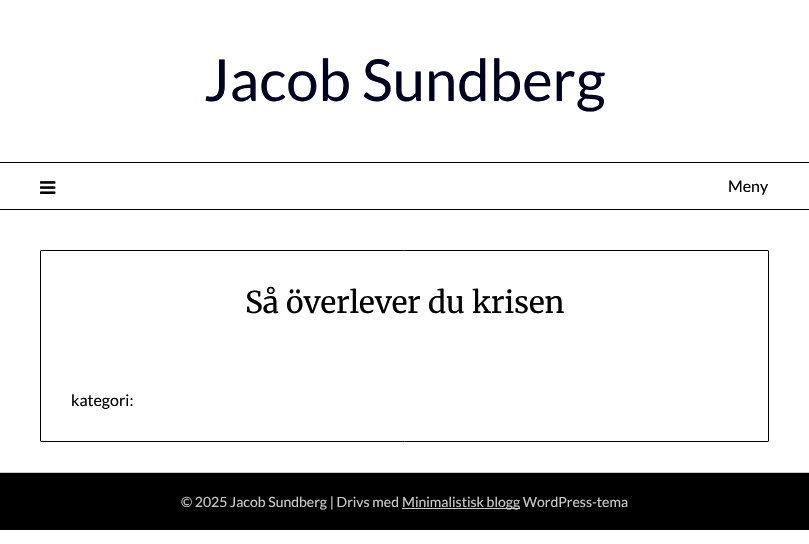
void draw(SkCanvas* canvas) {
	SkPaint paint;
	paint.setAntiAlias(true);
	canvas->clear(0xffffffff);
	SkFont f1(fontMgr->matchFamilyStyle("Lato", SkFontStyle::Normal()), 58);
	f1.setSubpixel(true);
	paint.setColor(0xff000222);
	canvas->drawString("Jacob Sundberg", 204, 101, f1, paint);
	paint.setColor(0xff000000);
	canvas->drawRect(SkRect::MakeXYWH(0, 162, 809, 1), paint);
	canvas->drawRect(SkRect::MakeXYWH(0, 209, 809, 1), paint);
	canvas->drawImageRect(SkImages::DeferredFromEncodedData(SkData::MakeFromFileName("img1.png")), SkRect::MakeXYWH(40, 181, 16, 13), SkSamplingOptions());
	SkFont f2(fontMgr->matchFamilyStyle("Lato", SkFontStyle::Normal()), 16);
	f2.setSubpixel(true);
	canvas->drawString("Meny", 728, 192, f2, paint);
	paint.setStroke(true);
	paint.setStrokeWidth(1);
	canvas->drawRoundRect(SkRect::MakeXYWH(40.5, 250.5, 728, 191), 0.5, 0.5, paint);
	SkFont f3(fontMgr->matchFamilyStyle("Merriweather", SkFontStyle::Normal()), 30);
	f3.setSubpixel(true);
	paint.setStroke(false);
	canvas->drawString("Så överlever du krisen", 245, 313, f3, paint);
	canvas->drawString("kategori:", 71, 406, f2, paint);
	canvas->drawRect(SkRect::MakeXYWH(0, 473, 809, 57), paint);
	paint.setColor(0xffcccccc);
	canvas->drawRect(SkRect::MakeXYWH(0, 472, 809, 1), paint);
	SkFont f4(fontMgr->matchFamilyStyle("Lato", SkFontStyle::Normal()), 14);
	f4.setSubpixel(true);
	canvas->drawString("© 2025 Jacob Sundberg | Drivs med", 181, 507, f4, paint);
	canvas->drawRect(SkRect::MakeXYWH(402, 508, 118, 1), paint);
	canvas->drawString("Minimalistisk blogg WordPress-tema", 402, 507, f4, paint);
}
